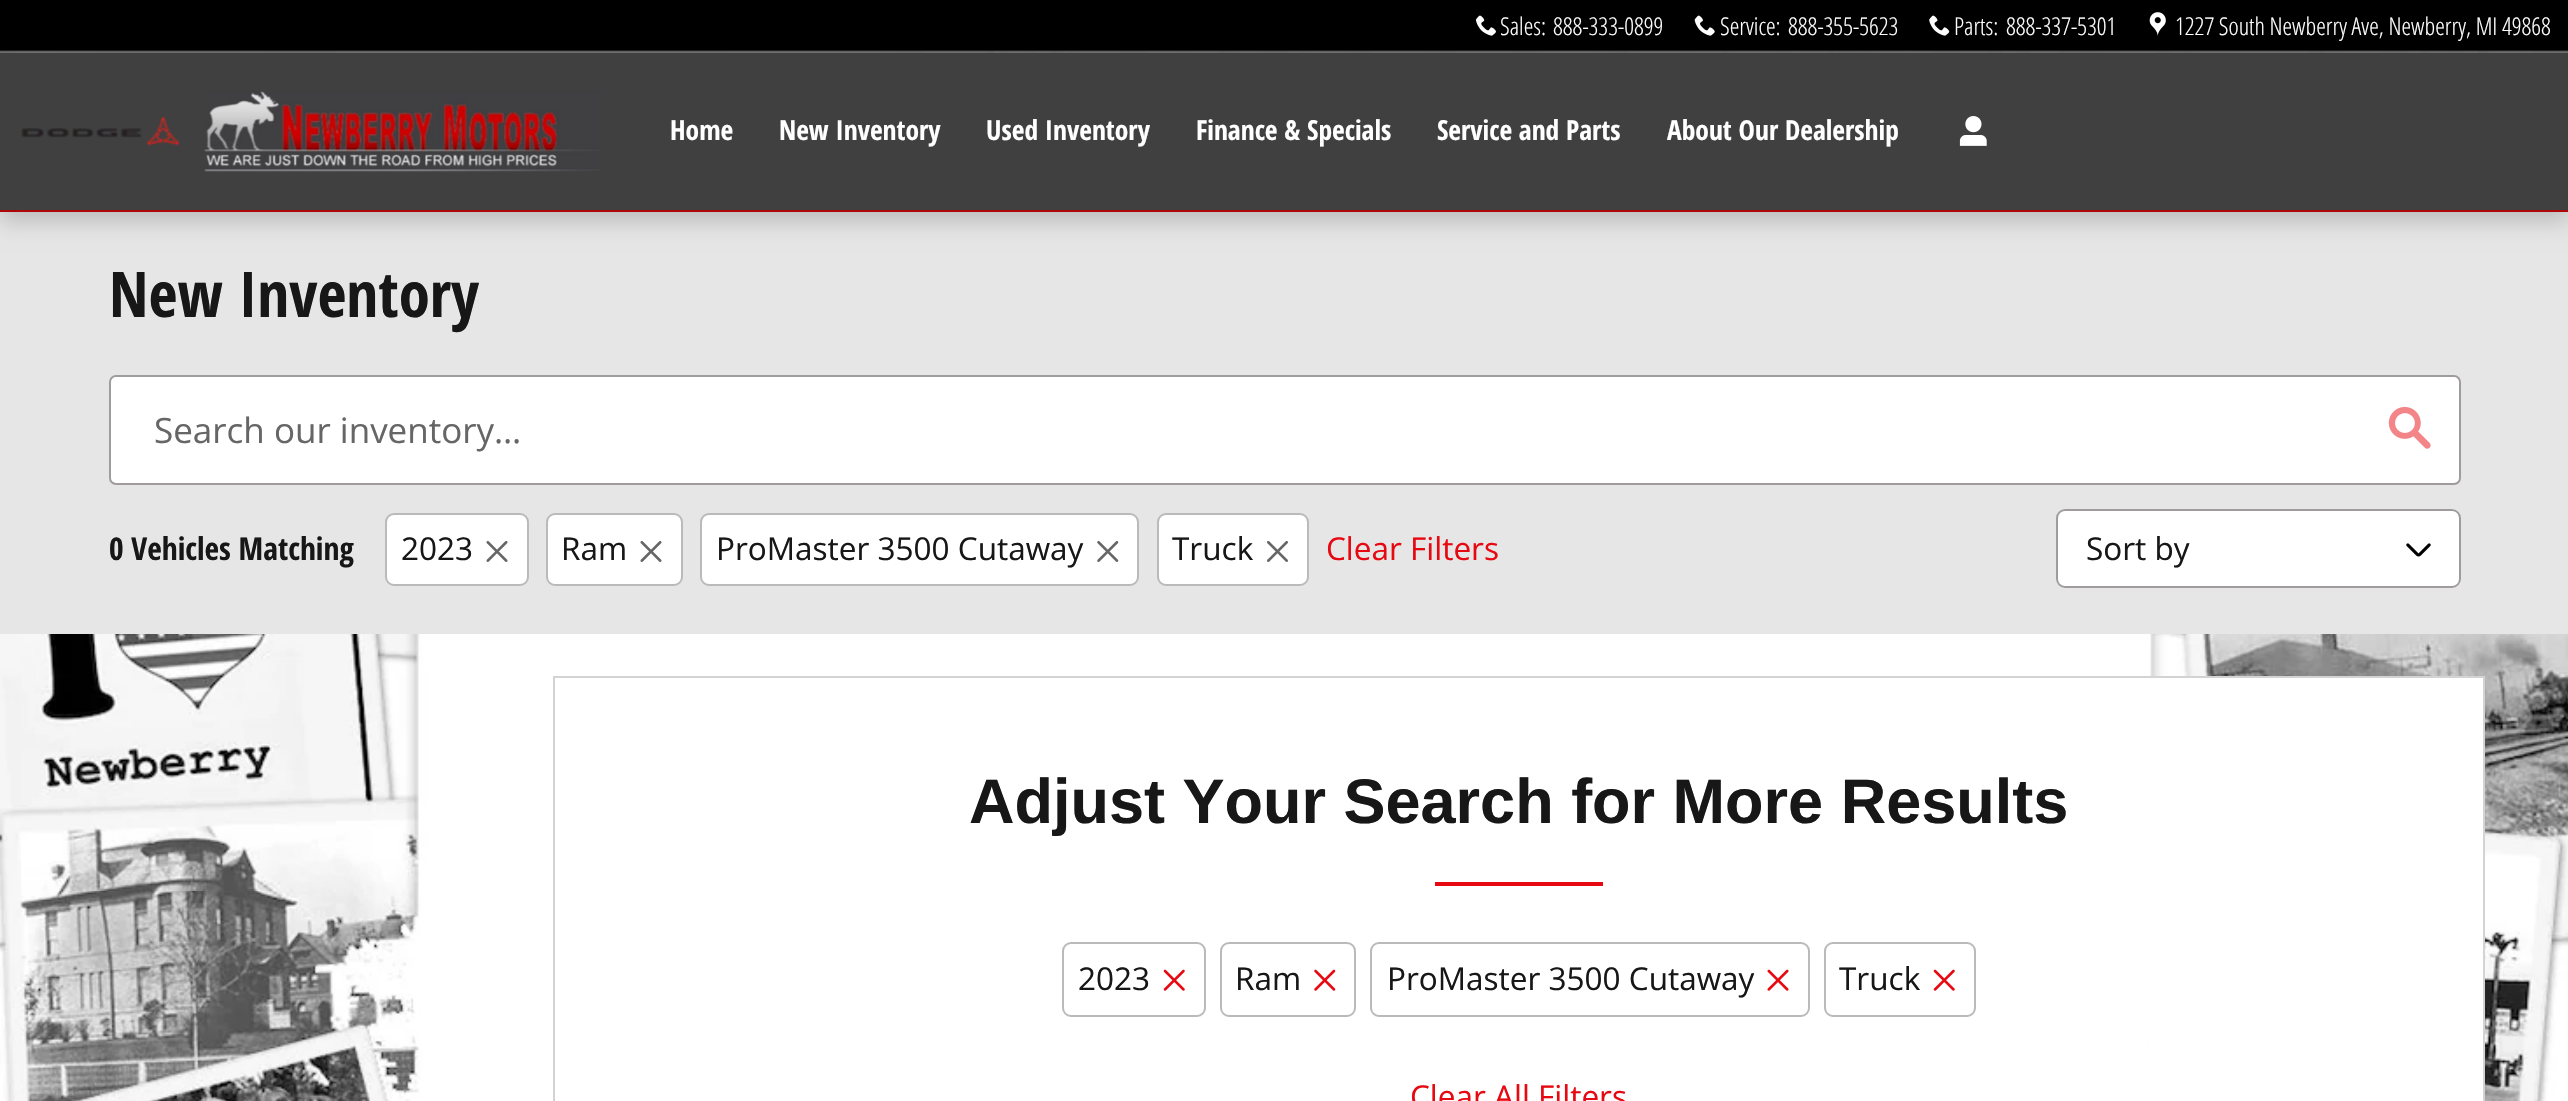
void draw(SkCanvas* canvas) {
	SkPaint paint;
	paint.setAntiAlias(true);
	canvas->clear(0xffffffff);
	canvas->drawImageRect(SkImages::DeferredFromEncodedData(SkData::MakeFromFileName("img1.png")), SkRect::MakeXYWH(0, 634, 2568, 467), SkSamplingOptions());
	paint.setColor(0xffe7e6e6);
	canvas->drawRect(SkRect::MakeXYWH(0, 212, 2568, 422), paint);
	paint.setColor(0x2e000000);
	paint.setMaskFilter(SkMaskFilter::MakeBlur(kNormal_SkBlurStyle, 10.5));
	canvas->drawRect(SkRect::MakeXYWH(0, 11, 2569, 211), paint);
	paint.setMaskFilter(nullptr);
	paint.setColor(0xff404041);
	canvas->drawRect(SkRect::MakeXYWH(0, 53, 2568, 157), paint);
	paint.setColor(0xffab0807);
	canvas->drawRect(SkRect::MakeXYWH(0, 210, 2568, 2), paint);
	paint.setColor(0xff000000);
	canvas->drawRect(SkRect::MakeXYWH(0, 0, 2568, 52), paint);
	canvas->drawImageRect(SkImages::DeferredFromEncodedData(SkData::MakeFromFileName("img2.png")), SkRect::MakeXYWH(0, 50, 2568, 3), SkSamplingOptions());
	canvas->drawImageRect(SkImages::DeferredFromEncodedData(SkData::MakeFromFileName("img3.png")), SkRect::MakeXYWH(1475, 15, 21, 21), SkSamplingOptions());
	SkFont f1(fontMgr->matchFamilyStyle("Open Sans", SkFontStyle(300, SkFontStyle::kNormal_Width, SkFontStyle::kUpright_Slant)), 24.5);
	f1.setSubpixel(true);
	paint.setColor(0xffffffff);
	canvas->drawString("Sales:", 1500, 35, f1, paint);
	canvas->drawString("888-333-0899", 1553, 35, f1, paint);
	canvas->drawImageRect(SkImages::DeferredFromEncodedData(SkData::MakeFromFileName("img4.png")), SkRect::MakeXYWH(1694, 15, 21, 21), SkSamplingOptions());
	canvas->drawString("Service:", 1720, 35, f1, paint);
	canvas->drawString("888-355-5623", 1788, 35, f1, paint);
	canvas->drawImageRect(SkImages::DeferredFromEncodedData(SkData::MakeFromFileName("img5.png")), SkRect::MakeXYWH(1929, 15, 21, 21), SkSamplingOptions());
	canvas->drawString("Parts:", 1954, 35, f1, paint);
	canvas->drawString("888-337-5301", 2006, 35, f1, paint);
	canvas->drawImageRect(SkImages::DeferredFromEncodedData(SkData::MakeFromFileName("img6.png")), SkRect::MakeXYWH(2149, 12, 17, 24), SkSamplingOptions());
	canvas->drawString("1227 South Newberry Ave, Newberry, MI 49868", 2175, 35, f1, paint);
	canvas->drawImageRect(SkImages::DeferredFromEncodedData(SkData::MakeFromFileName("img7.png")), SkRect::MakeXYWH(21, 116, 159, 30), SkSamplingOptions());
	canvas->drawImageRect(SkImages::DeferredFromEncodedData(SkData::MakeFromFileName("img8.png")), SkRect::MakeXYWH(204, 91, 397, 81), SkSamplingOptions());
	SkFont f2(fontMgr->matchFamilyStyle("Open Sans Condensed", SkFontStyle::Bold()), 27.5);
	f2.setSubpixel(true);
	canvas->drawString("Home", 670, 140, f2, paint);
	canvas->drawString("New Inventory", 779, 140, f2, paint);
	canvas->drawString("Used Inventory", 986, 140, f2, paint);
	canvas->drawString("Finance & Specials", 1196, 140, f2, paint);
	canvas->drawString("Service and Parts", 1437, 140, f2, paint);
	canvas->drawString("About Our Dealership", 1667, 140, f2, paint);
	canvas->drawImageRect(SkImages::DeferredFromEncodedData(SkData::MakeFromFileName("img9.png")), SkRect::MakeXYWH(1959, 116, 28, 30), SkSamplingOptions());
	SkFont f3(fontMgr->matchFamilyStyle("Open Sans Condensed", SkFontStyle::Bold()), 63);
	f3.setSubpixel(true);
	paint.setColor(0xff171717);
	canvas->drawString("New Inventory", 109, 317, f3, paint);
	paint.setColor(0xffffffff);
	canvas->drawRoundRect(SkRect::MakeXYWH(110, 376, 2350, 108), 6, 6, paint);
	paint.setStroke(true);
	paint.setStrokeWidth(2);
	paint.setColor(0xffa09c9c);
	canvas->drawRoundRect(SkRect::MakeXYWH(110, 376, 2350, 108), 6, 6, paint);
	SkFont f4(fontMgr->matchFamilyStyle("Open Sans", SkFontStyle::Normal()), 35);
	f4.setSubpixel(true);
	paint.setStroke(false);
	paint.setColor(0xff666666);
	canvas->drawString("Search our inventory…", 154, 443, f4, paint);
	canvas->drawImageRect(SkImages::DeferredFromEncodedData(SkData::MakeFromFileName("img10.png")), SkRect::MakeXYWH(2388, 406, 43, 43), SkSamplingOptions());
	SkFont f5(fontMgr->matchFamilyStyle("Open Sans Condensed", SkFontStyle::Bold()), 31.5);
	f5.setSubpixel(true);
	paint.setColor(0xff171717);
	canvas->drawString("0 Vehicles Matching", 109, 560, f5, paint);
	paint.setColor(0xffffffff);
	canvas->drawRoundRect(SkRect::MakeXYWH(386, 514, 142, 71), 8, 8, paint);
	paint.setStroke(true);
	paint.setColor(0xffbcb9b9);
	canvas->drawRoundRect(SkRect::MakeXYWH(386, 514, 142, 71), 8, 8, paint);
	SkFont f6(fontMgr->matchFamilyStyle("Open Sans", SkFontStyle::Normal()), 31.5);
	f6.setSubpixel(true);
	paint.setStroke(false);
	paint.setColor(0xff171717);
	canvas->drawString("2023", 401, 560, f6, paint);
	canvas->drawImageRect(SkImages::DeferredFromEncodedData(SkData::MakeFromFileName("img11.png")), SkRect::MakeXYWH(486, 541, 22, 21), SkSamplingOptions());
	paint.setColor(0xffffffff);
	canvas->drawRoundRect(SkRect::MakeXYWH(547, 514, 135, 71), 8, 8, paint);
	paint.setStroke(true);
	paint.setColor(0xffbcb9b9);
	canvas->drawRoundRect(SkRect::MakeXYWH(547, 514, 135, 71), 8, 8, paint);
	paint.setStroke(false);
	paint.setColor(0xff171717);
	canvas->drawString("Ram", 561, 560, f6, paint);
	canvas->drawImageRect(SkImages::DeferredFromEncodedData(SkData::MakeFromFileName("img11.png")), SkRect::MakeXYWH(640, 541, 22, 21), SkSamplingOptions());
	paint.setColor(0xffffffff);
	canvas->drawRoundRect(SkRect::MakeXYWH(701, 514, 437, 71), 8, 8, paint);
	paint.setStroke(true);
	paint.setColor(0xffbcb9b9);
	canvas->drawRoundRect(SkRect::MakeXYWH(701, 514, 437, 71), 8, 8, paint);
	paint.setStroke(false);
	paint.setColor(0xff171717);
	canvas->drawString("ProMaster 3500 Cutaway", 716, 560, f6, paint);
	canvas->drawImageRect(SkImages::DeferredFromEncodedData(SkData::MakeFromFileName("img12.png")), SkRect::MakeXYWH(1097, 541, 22, 21), SkSamplingOptions());
	paint.setColor(0xffffffff);
	canvas->drawRoundRect(SkRect::MakeXYWH(1158, 514, 150, 71), 8, 8, paint);
	paint.setStroke(true);
	paint.setColor(0xffbcb9b9);
	canvas->drawRoundRect(SkRect::MakeXYWH(1158, 514, 150, 71), 8, 8, paint);
	paint.setStroke(false);
	paint.setColor(0xff171717);
	canvas->drawString("Truck", 1172, 560, f6, paint);
	canvas->drawImageRect(SkImages::DeferredFromEncodedData(SkData::MakeFromFileName("img13.png")), SkRect::MakeXYWH(1267, 541, 21, 21), SkSamplingOptions());
	paint.setColor(0xffe70911);
	canvas->drawString("Clear Filters", 1326, 560, f6, paint);
	paint.setColor(0xffffffff);
	canvas->drawRoundRect(SkRect::MakeXYWH(2056, 509, 405, 79), 9, 9, paint);
	canvas->drawImageRect(SkImages::DeferredFromEncodedData(SkData::MakeFromFileName("img14.png")), SkRect::MakeXYWH(2406, 543, 25, 14), SkSamplingOptions());
	paint.setStroke(true);
	paint.setColor(0xffa09c9c);
	canvas->drawRoundRect(SkRect::MakeXYWH(2057, 510, 403, 77), 8, 8, paint);
	paint.setStroke(false);
	paint.setColor(0xff171717);
	canvas->drawString("Sort by", 2086, 560, f6, paint);
	paint.setColor(0xffffffff);
	canvas->drawRect(SkRect::MakeXYWH(2149, 678, 334, 423), paint);
	paint.setStroke(true);
	paint.setColor(0xffd4d2d2);
	canvas->drawRect(SkRect::MakeXYWH(554, 677, 1930, 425), paint);
	SkFont f7(fontMgr->matchFamilyStyle("Liberation Sans", SkFontStyle::Bold()), 63);
	f7.setSubpixel(true);
	paint.setStroke(false);
	paint.setColor(0xff171717);
	canvas->drawString("Adjust Your Search for More Results", 969, 823, f7, paint);
	paint.setColor(0xffe70911);
	canvas->drawRect(SkRect::MakeXYWH(1435, 882, 168, 4), paint);
	paint.setStroke(true);
	paint.setColor(0xffbcb9b9);
	canvas->drawRoundRect(SkRect::MakeXYWH(1063, 943, 142, 73), 8, 8, paint);
	paint.setStroke(false);
	paint.setColor(0xff171717);
	canvas->drawString("2023", 1078, 990, f6, paint);
	canvas->drawImageRect(SkImages::DeferredFromEncodedData(SkData::MakeFromFileName("img15.png")), SkRect::MakeXYWH(1163, 969, 22, 22), SkSamplingOptions());
	paint.setStroke(true);
	paint.setColor(0xffbcb9b9);
	canvas->drawRoundRect(SkRect::MakeXYWH(1221, 943, 134, 73), 8, 8, paint);
	paint.setStroke(false);
	paint.setColor(0xff171717);
	canvas->drawString("Ram", 1235, 990, f6, paint);
	canvas->drawImageRect(SkImages::DeferredFromEncodedData(SkData::MakeFromFileName("img16.png")), SkRect::MakeXYWH(1314, 969, 22, 22), SkSamplingOptions());
	paint.setStroke(true);
	paint.setColor(0xffbcb9b9);
	canvas->drawRoundRect(SkRect::MakeXYWH(1371, 943, 438, 73), 8, 8, paint);
	paint.setStroke(false);
	paint.setColor(0xff171717);
	canvas->drawString("ProMaster 3500 Cutaway", 1387, 990, f6, paint);
	canvas->drawImageRect(SkImages::DeferredFromEncodedData(SkData::MakeFromFileName("img17.png")), SkRect::MakeXYWH(1767, 969, 22, 22), SkSamplingOptions());
	paint.setStroke(true);
	paint.setColor(0xffbcb9b9);
	canvas->drawRoundRect(SkRect::MakeXYWH(1825, 943, 150, 73), 8, 8, paint);
	paint.setStroke(false);
	paint.setColor(0xff171717);
	canvas->drawString("Truck", 1839, 990, f6, paint);
	canvas->drawImageRect(SkImages::DeferredFromEncodedData(SkData::MakeFromFileName("img15.png")), SkRect::MakeXYWH(1933, 969, 22, 22), SkSamplingOptions());
	paint.setColor(0xffe70911);
	canvas->drawString("Clear All Filters", 1410, 1108, f6, paint);
}
